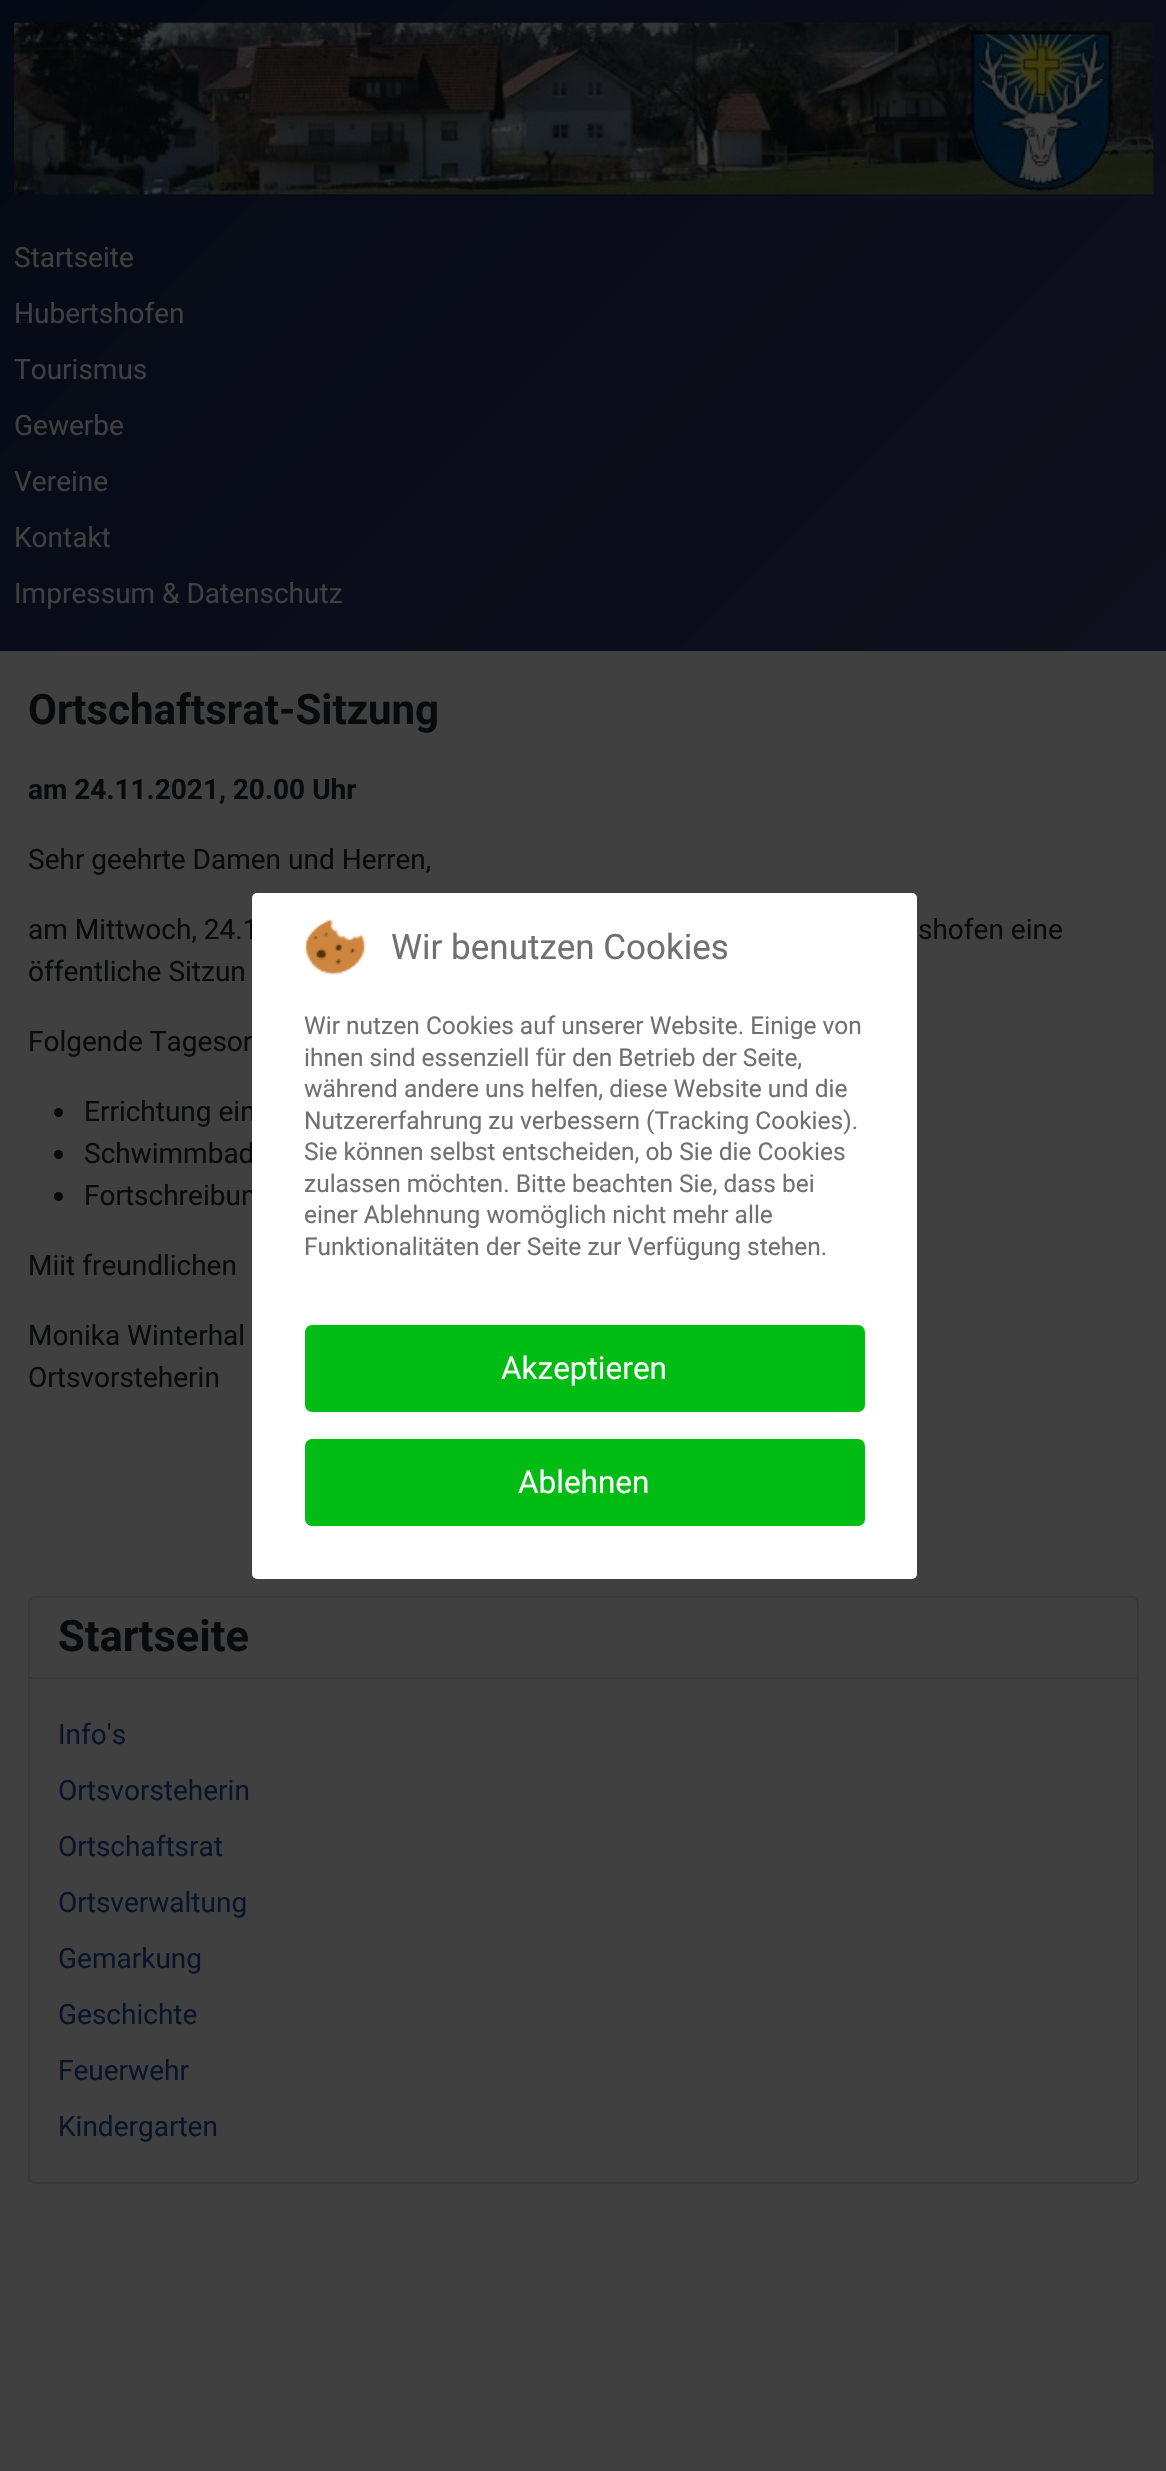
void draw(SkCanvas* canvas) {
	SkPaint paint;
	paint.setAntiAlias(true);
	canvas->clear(0xff404040);
	{
		const SkColor colors[] = {0xff040a15, 0xff11101e};
		const float stops[] = {0, 1};
		const SkPoint ends[] = {{129, -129}, {1038, 780}};
		paint.setShader(SkGradientShader::MakeLinear(ends, colors, stops, 2, SkTileMode::kClamp));
		paint.setAlpha(255);
	}
	canvas->drawRect(SkRect::MakeXYWH(0, 0, 1166, 651), paint);
	canvas->drawImageRect(SkImages::DeferredFromEncodedData(SkData::MakeFromFileName("img1.png")), SkRect::MakeXYWH(14, 22, 1140, 173), SkSamplingOptions());
	SkFont f1(fontMgr->matchFamilyStyle("Roboto", SkFontStyle::Normal()), 28);
	f1.setSubpixel(true);
	paint.setShader(nullptr);
	paint.setColor(0xff404040);
	canvas->drawString("Startseite", 14, 267, f1, paint);
	canvas->drawString("Hubertshofen", 14, 323, f1, paint);
	canvas->drawString("Tourismus", 14, 379, f1, paint);
	canvas->drawString("Gewerbe", 14, 435, f1, paint);
	canvas->drawString("Vereine", 14, 491, f1, paint);
	canvas->drawString("Kontakt", 14, 547, f1, paint);
	canvas->drawString("Impressum & Datenschutz", 14, 603, f1, paint);
	SkFont f2(fontMgr->matchFamilyStyle("Roboto", SkFontStyle::Bold()), 42);
	f2.setSubpixel(true);
	paint.setColor(0xff090a0b);
	canvas->drawString("Ortschaftsrat-Sitzung", 28, 724, f2, paint);
	SkFont f3(fontMgr->matchFamilyStyle("Roboto", SkFontStyle::Bold()), 28);
	f3.setSubpixel(true);
	canvas->drawString("am 24.11.2021, 20.00 Uhr", 28, 799, f3, paint);
	canvas->drawString("Sehr geehrte Damen und Herren,", 28, 869, f1, paint);
	canvas->drawString("am Mittwoch, 24.1", 28, 939, f1, paint);
	canvas->drawString("shofen eine", 918, 939, f1, paint);
	canvas->drawString("öffentliche Sitzun", 28, 981, f1, paint);
	canvas->drawString("Folgende Tagesor", 28, 1051, f1, paint);
	canvas->drawCircle(58.5, 1112.5, 4.5, paint);
	canvas->drawString("Errichtung ein", 84, 1121, f1, paint);
	canvas->drawCircle(58.5, 1154.5, 4.5, paint);
	canvas->drawString("Schwimmbad", 84, 1163, f1, paint);
	canvas->drawCircle(58.5, 1196.5, 4.5, paint);
	canvas->drawString("Fortschreibun", 84, 1205, f1, paint);
	canvas->drawString("Miit freundlichen", 28, 1275, f1, paint);
	canvas->drawString("Monika Winterhal", 28, 1345, f1, paint);
	canvas->drawString("Ortsvorsteherin", 28, 1387, f1, paint);
	paint.setStroke(true);
	paint.setStrokeWidth(2);
	paint.setColor(0xff38393a);
	canvas->drawRoundRect(SkRect::MakeXYWH(29, 1597, 1109, 586), 6, 6, paint);
	paint.setStroke(false);
	canvas->drawRect(SkRect::MakeXYWH(30, 1677, 1108, 2), paint);
	SkFont f4(fontMgr->matchFamilyStyle("Roboto", SkFontStyle::Bold()), 43.5);
	f4.setSubpixel(true);
	paint.setColor(0xff090a0b);
	canvas->drawString("Startseite", 58, 1651, f4, paint);
	paint.setColor(0xff09142b);
	canvas->drawString("Info's", 58, 1744, f1, paint);
	canvas->drawString("Ortsvorsteherin", 58, 1800, f1, paint);
	canvas->drawString("Ortschaftsrat", 58, 1856, f1, paint);
	canvas->drawString("Ortsverwaltung", 58, 1912, f1, paint);
	canvas->drawString("Gemarkung", 58, 1968, f1, paint);
	canvas->drawString("Geschichte", 58, 2024, f1, paint);
	canvas->drawString("Feuerwehr", 58, 2080, f1, paint);
	canvas->drawString("Kindergarten", 58, 2136, f1, paint);
	paint.setColor(0xffffffff);
	canvas->drawRoundRect(SkRect::MakeXYWH(252, 893, 665, 686), 5, 5, paint);
	canvas->drawImageRect(SkImages::DeferredFromEncodedData(SkData::MakeFromFileName("img2.png")), SkRect::MakeXYWH(304, 919, 62, 56), SkSamplingOptions());
	SkFont f5(fontMgr->matchFamilyStyle("Roboto", SkFontStyle::Normal()), 35);
	f5.setSubpixel(true);
	paint.setColor(0xff707070);
	canvas->drawString("Wir benutzen Cookies", 391, 959, f5, paint);
	SkFont f6(fontMgr->matchFamilyStyle("Roboto", SkFontStyle::Normal()), 24.5);
	f6.setSubpixel(true);
	canvas->drawString("Wir nutzen Cookies auf unserer Website. Einige von", 304, 1034, f6, paint);
	canvas->drawString("ihnen sind essenziell für den Betrieb der Seite,", 304, 1066, f6, paint);
	canvas->drawString("während andere uns helfen, diese Website und die", 304, 1097, f6, paint);
	canvas->drawString("Nutzererfahrung zu verbessern (Tracking Cookies).", 304, 1129, f6, paint);
	canvas->drawString("Sie können selbst entscheiden, ob Sie die Cookies", 304, 1160, f6, paint);
	canvas->drawString("zulassen möchten. Bitte beachten Sie, dass bei", 304, 1192, f6, paint);
	canvas->drawString("einer Ablehnung womöglich nicht mehr alle", 304, 1223, f6, paint);
	canvas->drawString("Funktionalitäten der Seite zur Verfügung stehen.", 304, 1255, f6, paint);
	paint.setColor(0xff00bc13);
	canvas->drawRoundRect(SkRect::MakeXYWH(305, 1325, 560, 87), 7, 7, paint);
	SkFont f7(fontMgr->matchFamilyStyle("Roboto", SkFontStyle::Normal()), 31.5);
	f7.setSubpixel(true);
	paint.setColor(0xffffffff);
	canvas->drawString("Akzeptieren", 501, 1379, f7, paint);
	paint.setColor(0xff00bc13);
	canvas->drawRoundRect(SkRect::MakeXYWH(305, 1439, 560, 87), 7, 7, paint);
	paint.setColor(0xffffffff);
	canvas->drawString("Ablehnen", 518, 1493, f7, paint);
}
